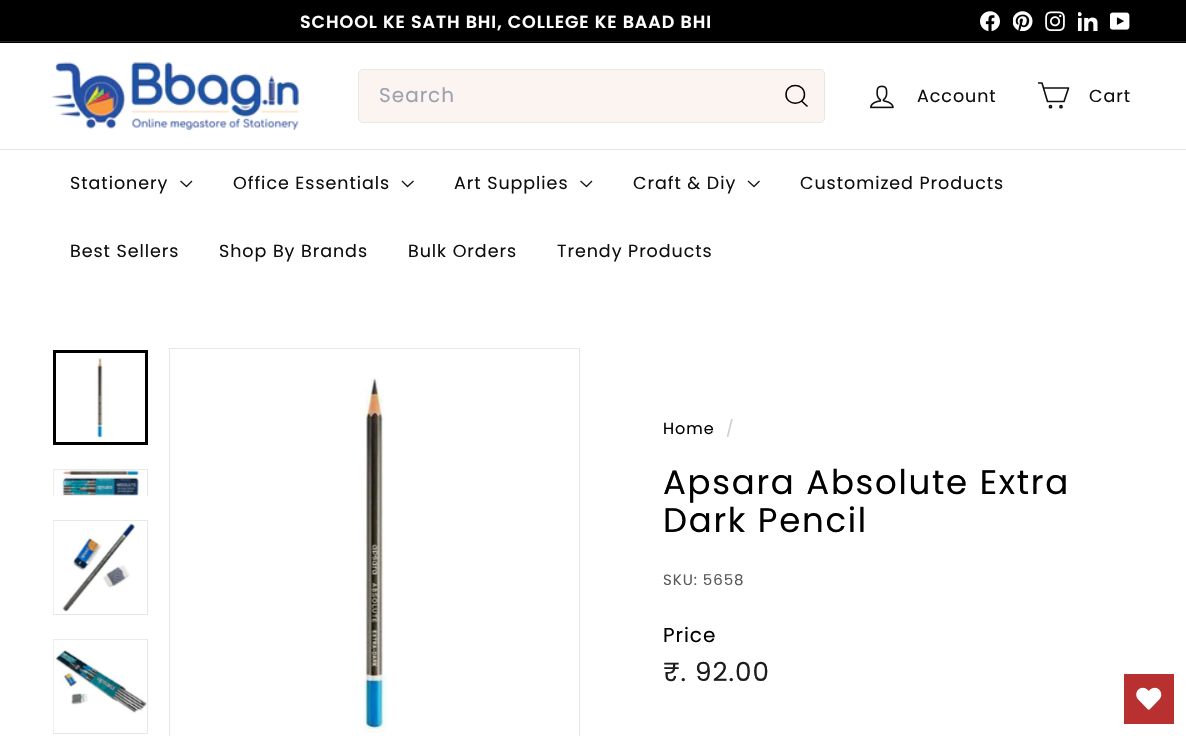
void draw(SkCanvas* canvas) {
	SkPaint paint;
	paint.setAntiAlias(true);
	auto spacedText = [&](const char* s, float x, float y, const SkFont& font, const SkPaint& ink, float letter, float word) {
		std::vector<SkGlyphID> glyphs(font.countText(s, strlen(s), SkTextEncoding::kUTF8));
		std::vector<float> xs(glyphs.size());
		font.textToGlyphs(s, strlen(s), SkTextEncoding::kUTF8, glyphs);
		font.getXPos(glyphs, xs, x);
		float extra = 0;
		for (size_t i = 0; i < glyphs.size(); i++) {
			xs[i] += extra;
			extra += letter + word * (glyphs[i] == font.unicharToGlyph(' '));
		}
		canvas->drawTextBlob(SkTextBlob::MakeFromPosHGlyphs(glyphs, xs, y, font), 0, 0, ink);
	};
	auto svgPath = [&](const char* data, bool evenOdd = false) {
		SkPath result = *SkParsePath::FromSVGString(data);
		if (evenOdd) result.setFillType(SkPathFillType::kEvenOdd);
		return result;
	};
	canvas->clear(0xffffffff);
	paint.setColor(0xff000000);
	canvas->drawRect(SkRect::MakeXYWH(0, 0, 1186, 43), paint);
	SkFont f1(fontMgr->matchFamilyStyle("Poppins", SkFontStyle(600, SkFontStyle::kNormal_Width, SkFontStyle::kUpright_Slant)), 17.5);
	f1.setSubpixel(true);
	paint.setColor(0xffffffff);
	spacedText("SCHOOL KE SATH BHI, COLLEGE KE BAAD BHI", 300, 28, f1, paint, 0.95, 0);
	canvas->drawImageRect(SkImages::DeferredFromEncodedData(SkData::MakeFromFileName("img1.png")), SkRect::MakeXYWH(980, 11, 20, 20), SkSamplingOptions());
	canvas->drawImageRect(SkImages::DeferredFromEncodedData(SkData::MakeFromFileName("img2.png")), SkRect::MakeXYWH(1013, 11, 20, 20), SkSamplingOptions());
	canvas->drawImageRect(SkImages::DeferredFromEncodedData(SkData::MakeFromFileName("img3.png")), SkRect::MakeXYWH(1045, 11, 20, 20), SkSamplingOptions());
	canvas->drawImageRect(SkImages::DeferredFromEncodedData(SkData::MakeFromFileName("img4.png")), SkRect::MakeXYWH(1078, 12, 20, 19), SkSamplingOptions());
	canvas->drawImageRect(SkImages::DeferredFromEncodedData(SkData::MakeFromFileName("img5.png")), SkRect::MakeXYWH(1110, 12, 20, 18), SkSamplingOptions());
	paint.setColor(0xff262626);
	canvas->drawRect(SkRect::MakeXYWH(0, 41, 1186, 1), paint);
	canvas->drawImageRect(SkImages::DeferredFromEncodedData(SkData::MakeFromFileName("img6.png")), SkRect::MakeXYWH(50, 61, 250, 69), SkSamplingOptions());
	paint.setColor(0xfffcf4f1);
	canvas->drawRoundRect(SkRect::MakeXYWH(358.5, 69.5, 466, 53), 4.5, 4.5, paint);
	paint.setStroke(true);
	paint.setStrokeWidth(1);
	paint.setColor(0xffe8e8e1);
	canvas->drawRoundRect(SkRect::MakeXYWH(358.5, 69.5, 466, 53), 4.5, 4.5, paint);
	SkFont f2(fontMgr->matchFamilyStyle("Poppins", SkFontStyle::Normal()), 20);
	f2.setSubpixel(true);
	paint.setStroke(false);
	paint.setColor(0xff9ca3af);
	spacedText("Search", 379, 102, f2, paint, 1, 0);
	paint.setStroke(true);
	paint.setStrokeWidth(1.5);
	paint.setStrokeJoin(SkPaint::kRound_Join);
	paint.setColor(0xff000000);
	canvas->drawPath(svgPath("M804.5 94.5C804.5 106 786 106 786 94.5C786 82.5 804.5 82.5 804.5 94.5M807.5 106.5L801.5 101"), paint);
	canvas->drawImageRect(SkImages::DeferredFromEncodedData(SkData::MakeFromFileName("img7.png")), SkRect::MakeXYWH(870, 85, 24, 24), SkSamplingOptions());
	SkFont f3(fontMgr->matchFamilyStyle("Poppins", SkFontStyle::Normal()), 17.5);
	f3.setSubpixel(true);
	paint.setStroke(false);
	paint.setColor(0xff0f0f0f);
	spacedText("Account", 917, 102, f3, paint, 0.95, 0);
	paint.setStroke(true);
	paint.setStrokeWidth(1.6);
	canvas->drawPath(svgPath("M1043.5 88H1068.5L1064 101.5H1047.5L1042 83H1038"), paint);
	paint.setStrokeJoin(SkPaint::kMiter_Join);
	canvas->drawCircle(1050.5, 106.7, 1.1, paint);
	canvas->drawCircle(1061, 106.7, 1.1, paint);
	paint.setStroke(false);
	spacedText("Cart", 1089, 102, f3, paint, 0.95, 0);
	paint.setColor(0xffe7e7e7);
	canvas->drawRect(SkRect::MakeXYWH(0, 149, 1186, 1), paint);
	paint.setColor(0xff0f0f0f);
	spacedText("Stationery", 70, 189, f3, paint, 0.95, 0);
	paint.setStroke(true);
	paint.setStrokeWidth(1.3);
	paint.setStrokeJoin(SkPaint::kRound_Join);
	canvas->drawPath(svgPath("M180.5 181L186.5 186.5L192 181"), paint);
	paint.setStroke(false);
	spacedText("Office Essentials", 233, 189, f3, paint, 0.95, 0);
	paint.setStroke(true);
	canvas->drawPath(svgPath("M402 181L407.5 186.5L413.5 181"), paint);
	paint.setStroke(false);
	spacedText("Art Supplies", 454, 189, f3, paint, 0.95, 0);
	paint.setStroke(true);
	canvas->drawPath(svgPath("M580.5 181L586.5 186.5L592 181"), paint);
	paint.setStroke(false);
	spacedText("Craft & Diy", 633, 189, f3, paint, 0.95, 0);
	paint.setStroke(true);
	canvas->drawPath(svgPath("M748 181L754 186.5L759.5 181"), paint);
	paint.setStroke(false);
	spacedText("Customized Products", 800, 189, f3, paint, 0.95, 0);
	spacedText("Best Sellers", 70, 257, f3, paint, 0.95, 0);
	spacedText("Shop By Brands", 219, 257, f3, paint, 0.95, 0);
	spacedText("Bulk Orders", 408, 257, f3, paint, 0.95, 0);
	spacedText("Trendy Products", 557, 257, f3, paint, 0.95, 0);
	canvas->drawImageRect(SkImages::DeferredFromEncodedData(SkData::MakeFromFileName("img8.png")), SkRect::MakeXYWH(56, 353, 47, 89), SkSamplingOptions());
	paint.setStroke(true);
	paint.setStrokeWidth(3);
	paint.setStrokeJoin(SkPaint::kMiter_Join);
	paint.setColor(0xff000000);
	canvas->drawRect(SkRect::MakeXYWH(54.5, 351.5, 92, 92), paint);
	canvas->save();
	canvas->clipRect(SkRect::MakeXYWH(53, 469, 95, 27));
	paint.setStrokeWidth(1);
	paint.setColor(0xffe8e8e1);
	canvas->drawRect(SkRect::MakeXYWH(53.5, 469.5, 94, 29), paint);
	canvas->restore();
	canvas->drawImageRect(SkImages::DeferredFromEncodedData(SkData::MakeFromFileName("img9.png")), SkRect::MakeXYWH(53, 469, 92, 27), SkSamplingOptions());
	canvas->drawRect(SkRect::MakeXYWH(53.5, 520.5, 94, 94), paint);
	canvas->drawImageRect(SkImages::DeferredFromEncodedData(SkData::MakeFromFileName("img10.png")), SkRect::MakeXYWH(53, 521, 82, 93), SkSamplingOptions());
	canvas->drawRect(SkRect::MakeXYWH(53.5, 639.5, 94, 94), paint);
	canvas->drawImageRect(SkImages::DeferredFromEncodedData(SkData::MakeFromFileName("img11.png")), SkRect::MakeXYWH(53, 639, 94, 94), SkSamplingOptions());
	canvas->drawRect(SkRect::MakeXYWH(169.5, 348.5, 410, 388), paint);
	canvas->drawImageRect(SkImages::DeferredFromEncodedData(SkData::MakeFromFileName("img12.png")), SkRect::MakeXYWH(363, 377, 24, 356), SkSamplingOptions());
	SkFont f4(fontMgr->matchFamilyStyle("Poppins", SkFontStyle::Normal()), 16);
	f4.setSubpixel(true);
	paint.setStroke(false);
	paint.setColor(0xff000000);
	spacedText("Home", 663, 434, f4, paint, 0.95, 0);
	paint.setColor(0xffcccccc);
	spacedText("/", 726, 434, f4, paint, 0.95, 0);
	SkFont f5(fontMgr->matchFamilyStyle("Poppins", SkFontStyle::Normal()), 34);
	f5.setSubpixel(true);
	paint.setColor(0xff000000);
	spacedText("Apsara Absolute Extra", 663, 494, f5, paint, 1.7, 0);
	spacedText("Dark Pencil", 663, 532, f5, paint, 1.7, 0);
	SkFont f6(fontMgr->matchFamilyStyle("Poppins", SkFontStyle::Normal()), 15);
	f6.setSubpixel(true);
	paint.setColor(0xff595959);
	spacedText("SKU: 5658", 663, 585, f6, paint, 0.95, 0);
	paint.setColor(0xff000000);
	spacedText("Price", 663, 642, f2, paint, 0.95, 0);
	SkFont f7(fontMgr->matchFamilyStyle("Poppins", SkFontStyle::Normal()), 26.25);
	f7.setSubpixel(true);
	paint.setColor(0xff1c1d1d);
	spacedText("₹. 92.00", 663, 681, f7, paint, 0.95, 0);
	paint.setColor(0xffb93030);
	canvas->drawRect(SkRect::MakeXYWH(1124, 674, 50, 50), paint);
	canvas->drawImageRect(SkImages::DeferredFromEncodedData(SkData::MakeFromFileName("img13.png")), SkRect::MakeXYWH(1136, 687, 26, 23), SkSamplingOptions());
}
